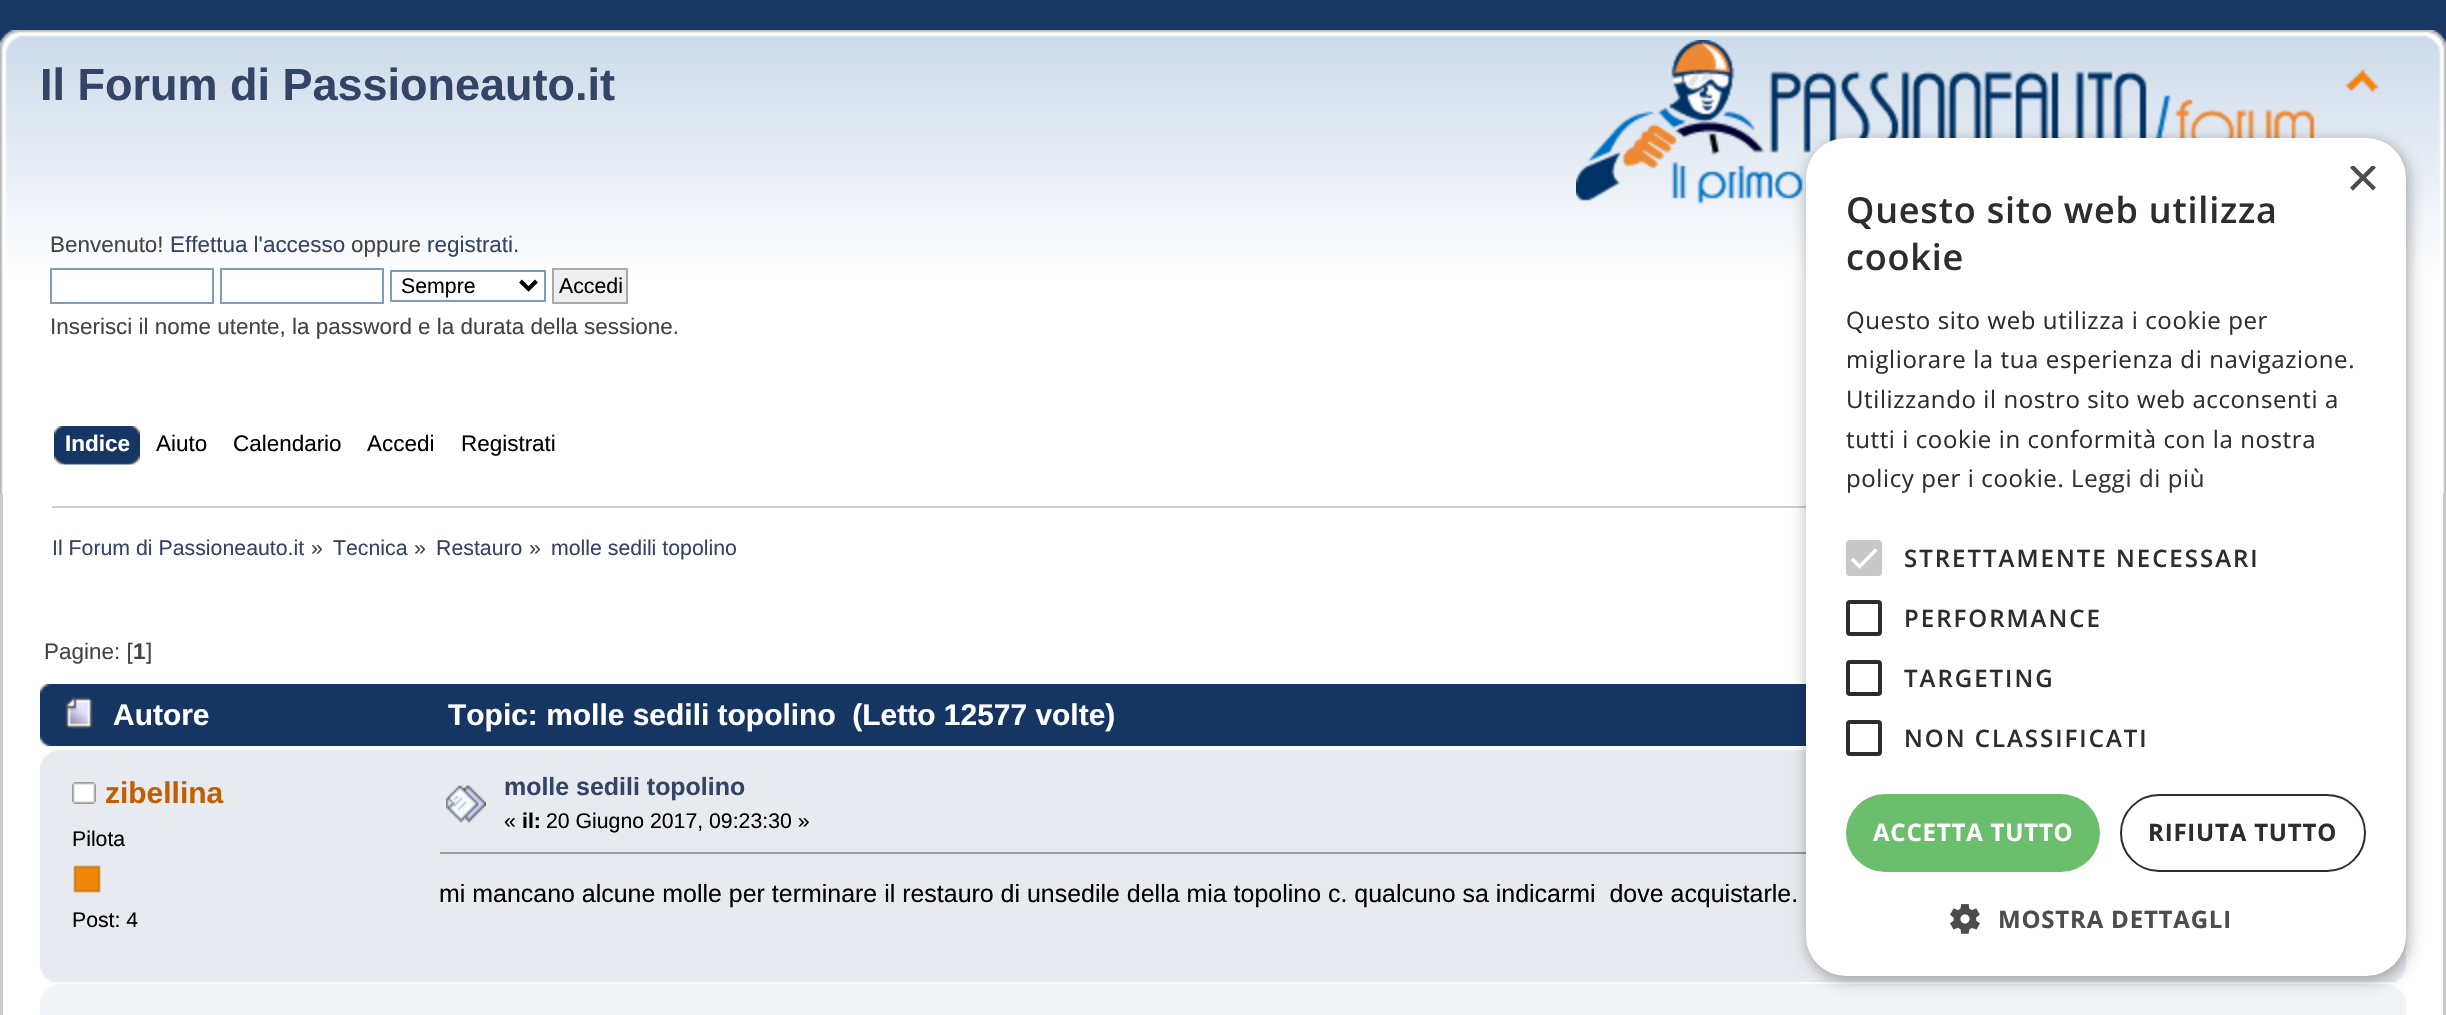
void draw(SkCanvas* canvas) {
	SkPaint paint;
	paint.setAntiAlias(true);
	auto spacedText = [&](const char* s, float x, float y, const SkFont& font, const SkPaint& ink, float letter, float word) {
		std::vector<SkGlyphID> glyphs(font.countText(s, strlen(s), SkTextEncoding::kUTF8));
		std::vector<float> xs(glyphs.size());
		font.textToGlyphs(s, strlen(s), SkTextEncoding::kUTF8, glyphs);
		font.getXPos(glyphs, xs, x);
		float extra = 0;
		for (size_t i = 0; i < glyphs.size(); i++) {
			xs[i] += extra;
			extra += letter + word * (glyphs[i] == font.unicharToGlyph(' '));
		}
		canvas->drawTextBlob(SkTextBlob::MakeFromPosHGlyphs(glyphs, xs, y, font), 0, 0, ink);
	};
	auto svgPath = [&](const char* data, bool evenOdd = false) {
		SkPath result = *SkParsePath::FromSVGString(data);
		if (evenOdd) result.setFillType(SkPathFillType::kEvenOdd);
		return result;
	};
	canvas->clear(0xffffffff);
	canvas->drawImageRect(SkImages::DeferredFromEncodedData(SkData::MakeFromFileName("img1.png")), SkRect::MakeXYWH(0, 0, 2446, 30), SkSamplingOptions());
	canvas->drawImageRect(SkImages::DeferredFromEncodedData(SkData::MakeFromFileName("img2.png")), SkRect::MakeXYWH(0, 30, 2425, 464), SkSamplingOptions());
	canvas->drawImageRect(SkImages::DeferredFromEncodedData(SkData::MakeFromFileName("img3.png")), SkRect::MakeXYWH(2425, 30, 21, 464), SkSamplingOptions());
	SkFont f1(fontMgr->matchFamilyStyle("Liberation Sans", SkFontStyle::Bold()), 45);
	f1.setSubpixel(true);
	paint.setColor(0xff334466);
	canvas->drawString("Il Forum di Passioneauto.it", 40, 100, f1, paint);
	canvas->drawImageRect(SkImages::DeferredFromEncodedData(SkData::MakeFromFileName("img4.png")), SkRect::MakeXYWH(1576, 40, 739, 165), SkSamplingOptions());
	canvas->drawImageRect(SkImages::DeferredFromEncodedData(SkData::MakeFromFileName("img5.png")), SkRect::MakeXYWH(2345, 69, 34, 24), SkSamplingOptions());
	SkFont f2(fontMgr->matchFamilyStyle("Liberation Sans", SkFontStyle::Normal()), 22.45);
	f2.setSubpixel(true);
	paint.setColor(0xff444444);
	canvas->drawString("Benvenuto!", 50, 252, f2, paint);
	paint.setColor(0xff334466);
	canvas->drawString("Effettua l'accesso", 170, 252, f2, paint);
	paint.setColor(0xff444444);
	canvas->drawString("oppure", 351, 252, f2, paint);
	paint.setColor(0xff334466);
	canvas->drawString("registrati", 427, 252, f2, paint);
	paint.setColor(0xff444444);
	canvas->drawString(".", 513, 252, f2, paint);
	paint.setStroke(true);
	paint.setStrokeWidth(2);
	paint.setColor(0xff7f9db9);
	canvas->drawRect(SkRect::MakeXYWH(51, 269, 162, 34), paint);
	canvas->drawRect(SkRect::MakeXYWH(221, 269, 162, 34), paint);
	canvas->drawRect(SkRect::MakeXYWH(391, 271, 154, 30), paint);
	paint.setStrokeWidth(4);
	paint.setColor(0xff000000);
	canvas->drawPath(svgPath("M520.5 281L528.5 289L536.5 281"), paint);
	SkFont f3(fontMgr->matchFamilyStyle("Liberation Sans", SkFontStyle::Normal()), 21.3);
	f3.setSubpixel(true);
	paint.setStroke(false);
	canvas->drawString("Sempre", 401, 293, f3, paint);
	paint.setColor(0xffeeeeee);
	canvas->drawRect(SkRect::MakeXYWH(553, 269, 74, 34), paint);
	paint.setStroke(true);
	paint.setStrokeWidth(2);
	paint.setColor(0xffaaaaaa);
	canvas->drawRect(SkRect::MakeXYWH(553, 269, 74, 34), paint);
	paint.setStroke(false);
	paint.setColor(0xff000000);
	canvas->drawString("Accedi", 559, 293, f3, paint);
	paint.setColor(0xff444444);
	canvas->drawString("Inserisci il nome utente, la password e la durata della sessione.", 50, 334, f2, paint);
	canvas->drawImageRect(SkImages::DeferredFromEncodedData(SkData::MakeFromFileName("img6.png")), SkRect::MakeXYWH(64, 426, 76, 39), SkSamplingOptions());
	canvas->drawImageRect(SkImages::DeferredFromEncodedData(SkData::MakeFromFileName("img7.png")), SkRect::MakeXYWH(54, 426, 76, 39), SkSamplingOptions());
	SkFont f4(fontMgr->matchFamilyStyle("Liberation Sans", SkFontStyle::Bold()), 22.45);
	f4.setSubpixel(true);
	paint.setColor(0xffffffff);
	canvas->drawString("Indice", 65, 451, f4, paint);
	paint.setColor(0xff000000);
	canvas->drawString("Aiuto", 156, 451, f2, paint);
	canvas->drawString("Calendario", 233, 451, f2, paint);
	canvas->drawString("Accedi", 367, 451, f2, paint);
	canvas->drawString("Registrati", 461, 451, f2, paint);
	paint.setColor(0xffc9c9c9);
	canvas->drawRect(SkRect::MakeXYWH(0, 494, 3, 521), paint);
	canvas->drawRect(SkRect::MakeXYWH(2443, 494, 3, 521), paint);
	paint.setColor(0xffcccccc);
	canvas->drawRect(SkRect::MakeXYWH(52, 506, 1754, 2), paint);
	paint.setColor(0xff334466);
	canvas->drawString("Il Forum di Passioneauto.it", 52, 555, f3, paint);
	paint.setColor(0xff444444);
	canvas->drawString("»", 311, 555, f3, paint);
	paint.setColor(0xff334466);
	canvas->drawString("Tecnica", 333, 555, f3, paint);
	paint.setColor(0xff444444);
	canvas->drawString("»", 414, 555, f3, paint);
	paint.setColor(0xff334466);
	canvas->drawString("Restauro", 436, 555, f3, paint);
	paint.setColor(0xff444444);
	canvas->drawString("»", 529, 555, f3, paint);
	paint.setColor(0xff334466);
	canvas->drawString("molle sedili topolino", 551, 555, f3, paint);
	paint.setColor(0xff444444);
	canvas->drawString("Pagine: [", 44, 659, f2, paint);
	canvas->drawString("1", 133, 659, f4, paint);
	canvas->drawString("]", 146, 659, f2, paint);
	canvas->drawImageRect(SkImages::DeferredFromEncodedData(SkData::MakeFromFileName("img8.png")), SkRect::MakeXYWH(40, 684, 1766, 62), SkSamplingOptions());
	canvas->drawImageRect(SkImages::DeferredFromEncodedData(SkData::MakeFromFileName("img9.png")), SkRect::MakeXYWH(65, 697, 28, 32), SkSamplingOptions());
	SkFont f5(fontMgr->matchFamilyStyle("Liberation Sans", SkFontStyle::Bold()), 29.95);
	f5.setSubpixel(true);
	paint.setColor(0xffffffff);
	canvas->drawString("Autore", 113, 725, f5, paint);
	canvas->drawString("Topic: molle sedili topolino  (Letto 12577 volte)", 448, 725, f5, paint);
	paint.setColor(0xffe7eaef);
	canvas->drawRect(SkRect::MakeXYWH(40, 750, 2366, 232), paint);
	canvas->drawImageRect(SkImages::DeferredFromEncodedData(SkData::MakeFromFileName("img10.png")), SkRect::MakeXYWH(40, 750, 17, 17), SkSamplingOptions());
	canvas->drawImageRect(SkImages::DeferredFromEncodedData(SkData::MakeFromFileName("img11.png")), SkRect::MakeXYWH(72, 782, 24, 22), SkSamplingOptions());
	paint.setColor(0xffc06002);
	canvas->drawString("zibellina", 105, 803, f5, paint);
	SkFont f6(fontMgr->matchFamilyStyle("Liberation Sans", SkFontStyle::Normal()), 21.25);
	f6.setSubpixel(true);
	paint.setColor(0xff000000);
	canvas->drawString("Pilota", 72, 846, f6, paint);
	canvas->drawImageRect(SkImages::DeferredFromEncodedData(SkData::MakeFromFileName("img12.png")), SkRect::MakeXYWH(73, 865, 28, 28), SkSamplingOptions());
	canvas->drawString("Post: 4", 72, 927, f6, paint);
	canvas->drawImageRect(SkImages::DeferredFromEncodedData(SkData::MakeFromFileName("img13.png")), SkRect::MakeXYWH(446, 785, 40, 38), SkSamplingOptions());
	SkFont f7(fontMgr->matchFamilyStyle("Liberation Sans", SkFontStyle::Bold()), 24.95);
	f7.setSubpixel(true);
	paint.setColor(0xff334466);
	canvas->drawString("molle sedili topolino", 504, 795, f7, paint);
	paint.setColor(0xff000000);
	canvas->drawString("«", 504, 828, f6, paint);
	SkFont f8(fontMgr->matchFamilyStyle("Liberation Sans", SkFontStyle::Bold()), 21.25);
	f8.setSubpixel(true);
	canvas->drawString("il:", 522, 828, f8, paint);
	canvas->drawString("20 Giugno 2017, 09:23:30 »", 546, 828, f6, paint);
	paint.setColor(0xff9999aa);
	canvas->drawRect(SkRect::MakeXYWH(440, 852, 1366, 2), paint);
	SkFont f9(fontMgr->matchFamilyStyle("Liberation Sans", SkFontStyle::Normal()), 24.95);
	f9.setSubpixel(true);
	paint.setColor(0xff000000);
	canvas->drawString("mi mancano alcune molle per terminare il restauro di unsedile della mia topolino c. qualcuno sa indicarmi  dove acquistarle.", 439, 902, f9, paint);
	canvas->drawImageRect(SkImages::DeferredFromEncodedData(SkData::MakeFromFileName("img14.png")), SkRect::MakeXYWH(40, 967, 11, 15), SkSamplingOptions());
	canvas->drawImageRect(SkImages::DeferredFromEncodedData(SkData::MakeFromFileName("img15.png")), SkRect::MakeXYWH(2395, 967, 11, 15), SkSamplingOptions());
	paint.setColor(0xfff0f4f7);
	canvas->drawRect(SkRect::MakeXYWH(40, 984, 2366, 31), paint);
	canvas->drawImageRect(SkImages::DeferredFromEncodedData(SkData::MakeFromFileName("img16.png")), SkRect::MakeXYWH(40, 984, 16, 16), SkSamplingOptions());
	canvas->drawImageRect(SkImages::DeferredFromEncodedData(SkData::MakeFromFileName("img17.png")), SkRect::MakeXYWH(2390, 984, 16, 15), SkSamplingOptions());
	paint.setColor(0x59000000);
	paint.setMaskFilter(SkMaskFilter::MakeBlur(kNormal_SkBlurStyle, 8));
	canvas->drawRoundRect(SkRect::MakeXYWH(1808, 142, 600, 838), 40, 40, paint);
	paint.setMaskFilter(nullptr);
	paint.setColor(0xffffffff);
	canvas->drawRoundRect(SkRect::MakeXYWH(1806, 138, 600, 838), 40, 40, paint);
	canvas->save();
	canvas->clipRect(SkRect::MakeXYWH(2346, 166, 30, 30));
	SkFont f10(fontMgr->matchFamilyStyle("Liberation Sans", SkFontStyle::Normal()), 58);
	f10.setSubpixel(true);
	paint.setColor(0xff4d4d4d);
	canvas->drawString("×", 2346, 197, f10, paint);
	canvas->restore();
	SkFont f11(fontMgr->matchFamilyStyle("Open Sans", SkFontStyle(600, SkFontStyle::kNormal_Width, SkFontStyle::kUpright_Slant)), 36);
	f11.setSubpixel(true);
	paint.setColor(0xff2d2d2d);
	spacedText("Questo sito web utilizza", 1846, 223, f11, paint, 0.8, 0);
	spacedText("cookie", 1846, 270, f11, paint, 0.8, 0);
	SkFont f12(fontMgr->matchFamilyStyle("Open Sans", SkFontStyle::Normal()), 24);
	f12.setSubpixel(true);
	spacedText("Questo sito web utilizza i cookie per", 1846, 329, f12, paint, 0.6, 0);
	spacedText("migliorare la tua esperienza di navigazione.", 1846, 368, f12, paint, 0.6, 0);
	spacedText("Utilizzando il nostro sito web acconsenti a", 1846, 408, f12, paint, 0.6, 0);
	spacedText("tutti i cookie in conformità con la nostra", 1846, 448, f12, paint, 0.6, 0);
	spacedText("policy per i cookie.", 1846, 487, f12, paint, 0.6, 0);
	paint.setColor(0xff333333);
	spacedText("Leggi di più", 2071, 487, f12, paint, 0.6, 0);
	paint.setColor(0xffc8c8c8);
	canvas->drawRoundRect(SkRect::MakeXYWH(1846, 540, 36, 36), 4, 4, paint);
	paint.setStroke(true);
	paint.setStrokeWidth(3.6);
	paint.setColor(0xffffffff);
	canvas->drawPath(svgPath("M1852 559L1859.5 566.5L1876.5 549.5"), paint);
	SkFont f13(fontMgr->matchFamilyStyle("Open Sans", SkFontStyle(600, SkFontStyle::kNormal_Width, SkFontStyle::kUpright_Slant)), 24);
	f13.setSubpixel(true);
	paint.setStroke(false);
	paint.setColor(0xff2d2d2d);
	spacedText("STRETTAMENTE NECESSARI", 1904, 567, f13, paint, 2, 0);
	paint.setStroke(true);
	paint.setStrokeWidth(4);
	canvas->drawRoundRect(SkRect::MakeXYWH(1848, 602, 32, 32), 2, 2, paint);
	paint.setStroke(false);
	spacedText("PERFORMANCE", 1904, 627, f13, paint, 2, 0);
	paint.setStroke(true);
	canvas->drawRoundRect(SkRect::MakeXYWH(1848, 662, 32, 32), 2, 2, paint);
	paint.setStroke(false);
	spacedText("TARGETING", 1904, 687, f13, paint, 2, 0);
	paint.setStroke(true);
	canvas->drawRoundRect(SkRect::MakeXYWH(1848, 722, 32, 32), 2, 2, paint);
	paint.setStroke(false);
	spacedText("NON CLASSIFICATI", 1904, 747, f13, paint, 2, 0);
	paint.setColor(0xff6bbe6b);
	canvas->drawRoundRect(SkRect::MakeXYWH(1846, 794, 254, 78), 39, 39, paint);
	SkFont f14(fontMgr->matchFamilyStyle("Open Sans", SkFontStyle::Bold()), 24);
	f14.setSubpixel(true);
	paint.setColor(0xffffffff);
	spacedText("ACCETTA TUTTO", 1873, 841, f14, paint, 0.8, 0);
	paint.setStroke(true);
	paint.setStrokeWidth(2);
	paint.setColor(0xff2d2d2d);
	canvas->drawRoundRect(SkRect::MakeXYWH(2121, 795, 244, 76), 38, 38, paint);
	paint.setStroke(false);
	spacedText("RIFIUTA TUTTO", 2148, 841, f14, paint, 0.8, 0);
	canvas->drawImageRect(SkImages::DeferredFromEncodedData(SkData::MakeFromFileName("img18.png")), SkRect::MakeXYWH(1950, 904, 30, 30), SkSamplingOptions());
	paint.setColor(0xff4d4d4d);
	spacedText("MOSTRA DETTAGLI", 1998, 928, f14, paint, 0.8, 0);
}
